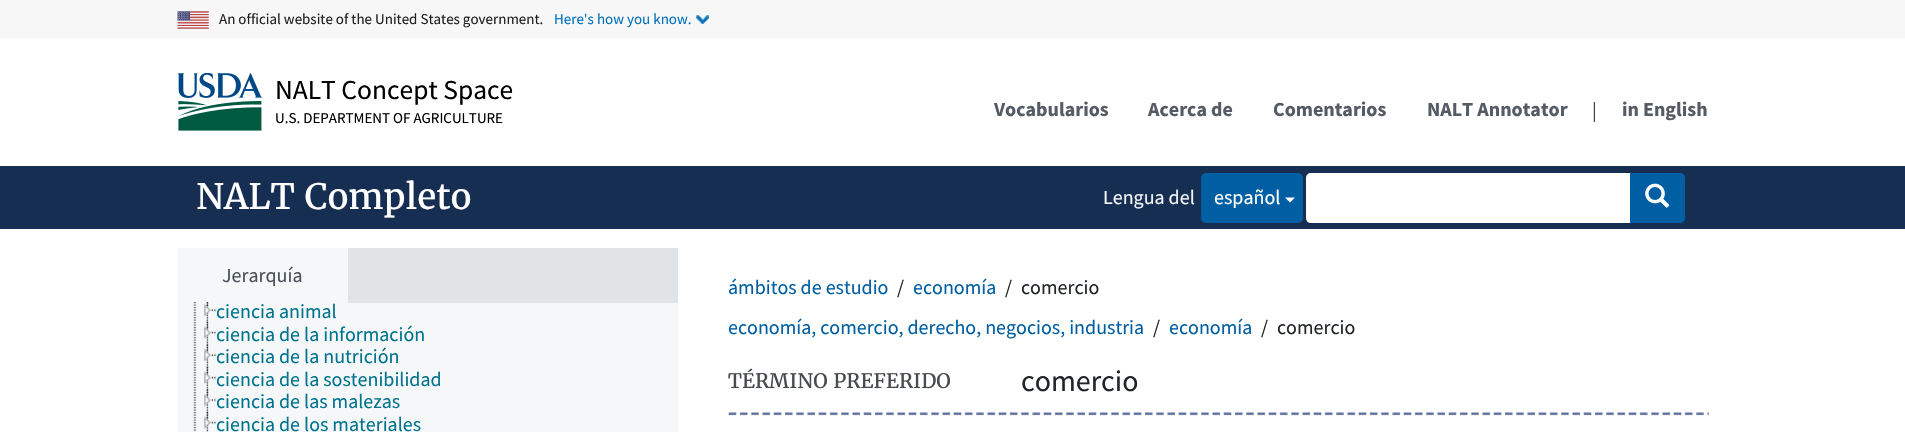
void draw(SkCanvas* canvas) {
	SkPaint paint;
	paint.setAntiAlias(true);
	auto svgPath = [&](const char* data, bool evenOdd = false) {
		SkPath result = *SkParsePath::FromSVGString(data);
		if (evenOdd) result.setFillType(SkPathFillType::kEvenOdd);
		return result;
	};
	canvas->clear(0xffffffff);
	paint.setColor(0xfff7f7f7);
	canvas->drawRect(SkRect::MakeXYWH(0, 0, 1905, 38), paint);
	canvas->drawImageRect(SkImages::DeferredFromEncodedData(SkData::MakeFromFileName("img1.png")), SkRect::MakeXYWH(177, 11, 32, 18), SkSamplingOptions());
	SkFont f1(fontMgr->matchFamilyStyle("Source Sans Pro", SkFontStyle::Normal()), 15);
	f1.setSubpixel(true);
	paint.setColor(0xff212121);
	canvas->drawString("An official website of the United States government.", 219, 24, f1, paint);
	canvas->drawImageRect(SkImages::DeferredFromEncodedData(SkData::MakeFromFileName("img2.png")), SkRect::MakeXYWH(696, 15, 13, 9), SkSamplingOptions());
	paint.setColor(0xff0071bc);
	canvas->drawString("Here's how you know.", 554, 24, f1, paint);
	canvas->drawImageRect(SkImages::DeferredFromEncodedData(SkData::MakeFromFileName("img3.png")), SkRect::MakeXYWH(178, 73, 85, 58), SkSamplingOptions());
	SkFont f2(fontMgr->matchFamilyStyle("Source Sans Pro", SkFontStyle::Normal()), 27.5);
	f2.setSubpixel(true);
	paint.setColor(0xff000000);
	canvas->drawString("NALT Concept Space", 275, 99, f2, paint);
	canvas->drawString("U.S. DEPARTMENT OF AGRICULTURE", 275, 123, f1, paint);
	SkFont f3(fontMgr->matchFamilyStyle("Source Sans Pro", SkFontStyle::Bold()), 20);
	f3.setSubpixel(true);
	paint.setColor(0xff565c65);
	canvas->drawString("Vocabularios", 994, 116, f3, paint);
	canvas->drawString("Acerca de", 1148, 116, f3, paint);
	canvas->drawString("Comentarios", 1273, 116, f3, paint);
	canvas->drawString("NALT Annotator", 1427, 116, f3, paint);
	SkFont f4(fontMgr->matchFamilyStyle("Source Sans Pro", SkFontStyle::Normal()), 20);
	f4.setSubpixel(true);
	paint.setColor(0xff394554);
	canvas->drawString("|", 1592, 117, f4, paint);
	paint.setColor(0xff565c65);
	canvas->drawString("in English", 1622, 116, f3, paint);
	paint.setColor(0xff162e51);
	canvas->drawRect(SkRect::MakeXYWH(0, 166, 1905, 63), paint);
	SkFont f5(fontMgr->matchFamilyStyle("Merriweather", SkFontStyle::Normal()), 35);
	f5.setSubpixel(true);
	paint.setColor(0xffffffff);
	canvas->drawString("NALT Completo", 196, 209, f5, paint);
	paint.setColor(0xfff3f5f6);
	canvas->drawString("Lengua del", 1103, 204, f4, paint);
	paint.setColor(0xff005ea2);
	canvas->drawRoundRect(SkRect::MakeXYWH(1201, 173, 102, 50), 5, 5, paint);
	paint.setColor(0xffffffff);
	canvas->drawString("español", 1214, 204, f4, paint);
	canvas->drawPath(svgPath("M1285 197.5H1295L1290 202.5Z"), paint);
	canvas->drawPath(svgPath("M1311 173H1631V223H1311C1308 223 1306 221 1306 218V178C1306 175 1308 173 1311 173Z"), paint);
	paint.setColor(0xff005ea2);
	canvas->drawPath(svgPath("M1630 173H1680C1683 173 1685 175 1685 178V218C1685 221 1683 223 1680 223H1630Z"), paint);
	canvas->drawImageRect(SkImages::DeferredFromEncodedData(SkData::MakeFromFileName("img4.png")), SkRect::MakeXYWH(1645, 183, 25, 25), SkSamplingOptions());
	paint.setColor(0xffe0e4e7);
	canvas->drawRect(SkRect::MakeXYWH(348, 248, 330, 55), paint);
	paint.setColor(0xfff6f7f8);
	canvas->drawRect(SkRect::MakeXYWH(178, 248, 170, 55), paint);
	paint.setColor(0xff495057);
	canvas->drawString("Jerarquía", 222, 282, f4, paint);
	paint.setColor(0xfff6f7f8);
	canvas->drawRect(SkRect::MakeXYWH(178, 303, 500, 129), paint);
	canvas->drawImageRect(SkImages::DeferredFromEncodedData(SkData::MakeFromFileName("img5.png")), SkRect::MakeXYWH(193, 302, 4, 130), SkSamplingOptions());
	canvas->drawImageRect(SkImages::DeferredFromEncodedData(SkData::MakeFromFileName("img6.png")), SkRect::MakeXYWH(206, 302, 3, 20), SkSamplingOptions());
	canvas->drawImageRect(SkImages::DeferredFromEncodedData(SkData::MakeFromFileName("img7.png")), SkRect::MakeXYWH(204, 302, 12, 15), SkSamplingOptions());
	paint.setColor(0xff00748f);
	canvas->drawString("ciencia animal", 216, 318, f4, paint);
	canvas->drawImageRect(SkImages::DeferredFromEncodedData(SkData::MakeFromFileName("img8.png")), SkRect::MakeXYWH(206, 321, 3, 24), SkSamplingOptions());
	canvas->drawImageRect(SkImages::DeferredFromEncodedData(SkData::MakeFromFileName("img9.png")), SkRect::MakeXYWH(204, 321, 12, 18), SkSamplingOptions());
	canvas->drawString("ciencia de la información", 216, 341, f4, paint);
	canvas->drawImageRect(SkImages::DeferredFromEncodedData(SkData::MakeFromFileName("img10.png")), SkRect::MakeXYWH(206, 344, 3, 23), SkSamplingOptions());
	canvas->drawImageRect(SkImages::DeferredFromEncodedData(SkData::MakeFromFileName("img11.png")), SkRect::MakeXYWH(204, 343, 12, 19), SkSamplingOptions());
	canvas->drawString("ciencia de la nutrición", 216, 363, f4, paint);
	canvas->drawImageRect(SkImages::DeferredFromEncodedData(SkData::MakeFromFileName("img12.png")), SkRect::MakeXYWH(206, 366, 3, 23), SkSamplingOptions());
	canvas->drawImageRect(SkImages::DeferredFromEncodedData(SkData::MakeFromFileName("img13.png")), SkRect::MakeXYWH(204, 366, 12, 18), SkSamplingOptions());
	canvas->drawString("ciencia de la sostenibilidad", 216, 386, f4, paint);
	canvas->drawImageRect(SkImages::DeferredFromEncodedData(SkData::MakeFromFileName("img14.png")), SkRect::MakeXYWH(206, 389, 3, 23), SkSamplingOptions());
	canvas->drawImageRect(SkImages::DeferredFromEncodedData(SkData::MakeFromFileName("img15.png")), SkRect::MakeXYWH(204, 389, 12, 18), SkSamplingOptions());
	canvas->drawString("ciencia de las malezas", 216, 408, f4, paint);
	canvas->drawImageRect(SkImages::DeferredFromEncodedData(SkData::MakeFromFileName("img16.png")), SkRect::MakeXYWH(206, 411, 3, 21), SkSamplingOptions());
	canvas->drawImageRect(SkImages::DeferredFromEncodedData(SkData::MakeFromFileName("img13.png")), SkRect::MakeXYWH(204, 411, 12, 18), SkSamplingOptions());
	canvas->drawString("ciencia de los materiales", 216, 431, f4, paint);
	paint.setColor(0xff005ea2);
	canvas->drawString("ámbitos de estudio", 728, 294, f4, paint);
	paint.setColor(0xff212529);
	canvas->drawString("/", 897, 294, f4, paint);
	paint.setColor(0xff005ea2);
	canvas->drawString("economía", 913, 294, f4, paint);
	paint.setColor(0xff212529);
	canvas->drawString("/", 1005, 294, f4, paint);
	canvas->drawString("comercio", 1021, 294, f4, paint);
	paint.setColor(0xff005ea2);
	canvas->drawString("economía, comercio, derecho, negocios, industria", 728, 334, f4, paint);
	paint.setColor(0xff212529);
	canvas->drawString("/", 1153, 334, f4, paint);
	paint.setColor(0xff005ea2);
	canvas->drawString("economía", 1169, 334, f4, paint);
	paint.setColor(0xff212529);
	canvas->drawString("/", 1261, 334, f4, paint);
	canvas->drawString("comercio", 1277, 334, f4, paint);
	SkFont f6(fontMgr->matchFamilyStyle("Merriweather", SkFontStyle::Normal()), 20);
	f6.setSubpixel(true);
	paint.setColor(0xff474b4f);
	canvas->drawString("TÉRMINO PREFERIDO", 728, 388, f6, paint);
	SkFont f7(fontMgr->matchFamilyStyle("Source Sans Pro", SkFontStyle::Normal()), 30);
	f7.setSubpixel(true);
	paint.setColor(0xff212529);
	canvas->drawString("comercio", 1021, 391, f7, paint);
	canvas->drawImageRect(SkImages::DeferredFromEncodedData(SkData::MakeFromFileName("img17.png")), SkRect::MakeXYWH(728, 412, 981, 4), SkSamplingOptions());
}
